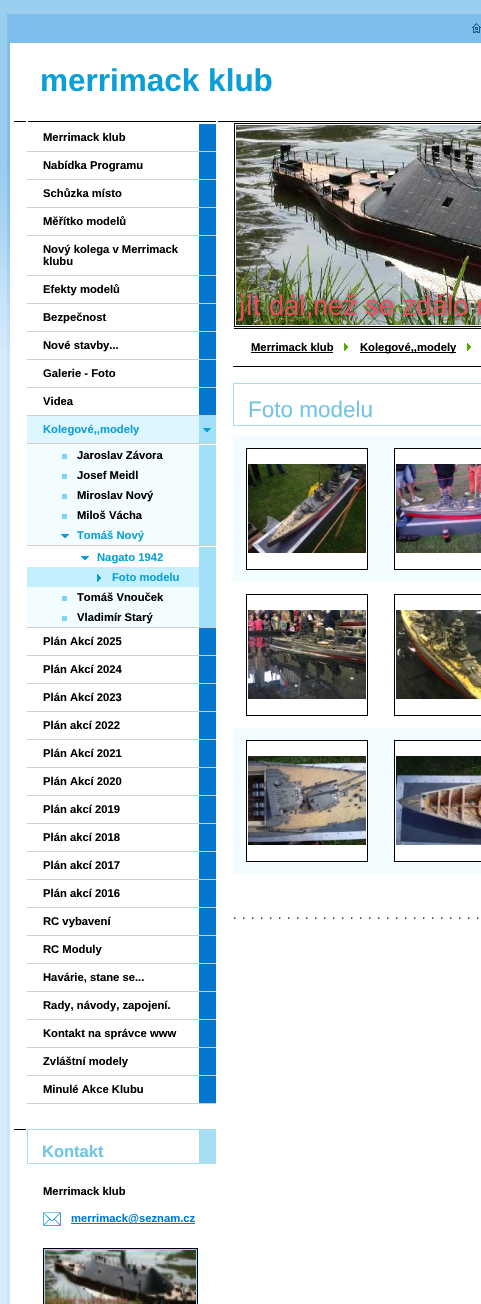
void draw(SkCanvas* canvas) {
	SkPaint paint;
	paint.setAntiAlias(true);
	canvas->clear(0xffd8ebfd);
	canvas->drawImageRect(SkImages::DeferredFromEncodedData(SkData::MakeFromFileName("img1.png")), SkRect::MakeXYWH(7, 348, 3, 956), SkSamplingOptions());
	canvas->drawImageRect(SkImages::DeferredFromEncodedData(SkData::MakeFromFileName("img2.png")), SkRect::MakeXYWH(0, 0, 10, 348), SkSamplingOptions());
	paint.setColor(0xffffffff);
	canvas->drawRect(SkRect::MakeXYWH(10, 43, 471, 1261), paint);
	paint.setColor(0xff9aceef);
	canvas->drawRect(SkRect::MakeXYWH(10, 0, 471, 14), paint);
	paint.setColor(0xff7cbdea);
	canvas->drawRect(SkRect::MakeXYWH(10, 14, 471, 29), paint);
	canvas->drawImageRect(SkImages::DeferredFromEncodedData(SkData::MakeFromFileName("img3.png")), SkRect::MakeXYWH(472, 23, 9, 10), SkSamplingOptions());
	SkFont f1(fontMgr->matchFamilyStyle("Liberation Sans", SkFontStyle::Bold()), 31.5);
	f1.setSubpixel(true);
	paint.setColor(0xff0c9fd6);
	canvas->drawString("merrimack klub", 40, 91, f1, paint);
	canvas->drawImageRect(SkImages::DeferredFromEncodedData(SkData::MakeFromFileName("img4.png")), SkRect::MakeXYWH(14, 121, 202, 1), SkSamplingOptions());
	paint.setColor(0xff0677ce);
	canvas->drawRect(SkRect::MakeXYWH(199, 124, 17, 979), paint);
	paint.setColor(0xffcfcfcf);
	canvas->drawRect(SkRect::MakeXYWH(27, 151, 189, 1), paint);
	SkFont f2(fontMgr->matchFamilyStyle("Liberation Sans", SkFontStyle::Bold()), 11.25);
	f2.setSubpixel(true);
	paint.setColor(0xff000000);
	canvas->drawString("Merrimack klub", 43, 141, f2, paint);
	paint.setColor(0xffcfcfcf);
	canvas->drawRect(SkRect::MakeXYWH(27, 179, 189, 1), paint);
	paint.setColor(0xff000000);
	canvas->drawString("Nabídka Programu", 43, 169, f2, paint);
	paint.setColor(0xffcfcfcf);
	canvas->drawRect(SkRect::MakeXYWH(27, 207, 189, 1), paint);
	paint.setColor(0xff000000);
	canvas->drawString("Schůzka místo", 43, 197, f2, paint);
	paint.setColor(0xffcfcfcf);
	canvas->drawRect(SkRect::MakeXYWH(27, 235, 189, 1), paint);
	paint.setColor(0xff000000);
	canvas->drawString("Měřítko modelů", 43, 225, f2, paint);
	paint.setColor(0xffcfcfcf);
	canvas->drawRect(SkRect::MakeXYWH(27, 275, 189, 1), paint);
	paint.setColor(0xff000000);
	canvas->drawString("Nový kolega v Merrimack", 43, 253, f2, paint);
	canvas->drawString("klubu", 43, 265, f2, paint);
	paint.setColor(0xffcfcfcf);
	canvas->drawRect(SkRect::MakeXYWH(27, 303, 189, 1), paint);
	paint.setColor(0xff000000);
	canvas->drawString("Efekty modelů", 43, 293, f2, paint);
	paint.setColor(0xffcfcfcf);
	canvas->drawRect(SkRect::MakeXYWH(27, 331, 189, 1), paint);
	paint.setColor(0xff000000);
	canvas->drawString("Bezpečnost", 43, 321, f2, paint);
	paint.setColor(0xffcfcfcf);
	canvas->drawRect(SkRect::MakeXYWH(27, 359, 189, 1), paint);
	paint.setColor(0xff000000);
	canvas->drawString("Nové stavby...", 43, 349, f2, paint);
	paint.setColor(0xffcfcfcf);
	canvas->drawRect(SkRect::MakeXYWH(27, 387, 189, 1), paint);
	paint.setColor(0xff000000);
	canvas->drawString("Galerie - Foto", 43, 377, f2, paint);
	paint.setColor(0xffcfcfcf);
	canvas->drawRect(SkRect::MakeXYWH(27, 415, 189, 1), paint);
	paint.setColor(0xff000000);
	canvas->drawString("Videa", 43, 405, f2, paint);
	paint.setColor(0xffdef6ff);
	canvas->drawRect(SkRect::MakeXYWH(27, 416, 172, 27), paint);
	canvas->drawImageRect(SkImages::DeferredFromEncodedData(SkData::MakeFromFileName("img5.png")), SkRect::MakeXYWH(199, 416, 17, 27), SkSamplingOptions());
	paint.setColor(0xffcfcfcf);
	canvas->drawRect(SkRect::MakeXYWH(27, 627, 189, 1), paint);
	paint.setColor(0xff0c9fd6);
	canvas->drawString("Kolegové,,modely", 43, 433, f2, paint);
	paint.setColor(0xfff3fcff);
	canvas->drawRect(SkRect::MakeXYWH(27, 445, 172, 182), paint);
	paint.setColor(0xffa1e0f8);
	canvas->drawRect(SkRect::MakeXYWH(199, 445, 17, 182), paint);
	paint.setColor(0xffcfcfcf);
	canvas->drawRect(SkRect::MakeXYWH(27, 443, 189, 1), paint);
	paint.setColor(0xff79d5f9);
	canvas->drawRect(SkRect::MakeXYWH(62, 454, 5, 5), paint);
	paint.setColor(0xffffffff);
	canvas->drawRect(SkRect::MakeXYWH(199, 444, 17, 1), paint);
	paint.setColor(0xff000000);
	canvas->drawString("Jaroslav Závora", 77, 459, f2, paint);
	paint.setColor(0xff79d5f9);
	canvas->drawRect(SkRect::MakeXYWH(62, 474, 5, 5), paint);
	paint.setColor(0xff000000);
	canvas->drawString("Josef Meidl", 77, 479, f2, paint);
	paint.setColor(0xff79d5f9);
	canvas->drawRect(SkRect::MakeXYWH(62, 494, 5, 5), paint);
	paint.setColor(0xff000000);
	canvas->drawString("Miroslav Nový", 77, 499, f2, paint);
	paint.setColor(0xff79d5f9);
	canvas->drawRect(SkRect::MakeXYWH(62, 514, 5, 5), paint);
	paint.setColor(0xff000000);
	canvas->drawString("Miloš Vácha", 77, 519, f2, paint);
	canvas->drawImageRect(SkImages::DeferredFromEncodedData(SkData::MakeFromFileName("img6.png")), SkRect::MakeXYWH(61, 534, 8, 4), SkSamplingOptions());
	paint.setColor(0xff0c9fd6);
	canvas->drawString("Tomáš Nový", 77, 539, f2, paint);
	paint.setColor(0xffffffff);
	canvas->drawRect(SkRect::MakeXYWH(27, 547, 172, 20), paint);
	paint.setColor(0xffcfcfcf);
	canvas->drawRect(SkRect::MakeXYWH(27, 545, 189, 1), paint);
	canvas->drawImageRect(SkImages::DeferredFromEncodedData(SkData::MakeFromFileName("img7.png")), SkRect::MakeXYWH(81, 556, 8, 4), SkSamplingOptions());
	paint.setColor(0xffffffff);
	canvas->drawRect(SkRect::MakeXYWH(27, 546, 189, 1), paint);
	paint.setColor(0xff0c9fd6);
	canvas->drawString("Nagato 1942", 97, 561, f2, paint);
	paint.setColor(0xffc4efff);
	canvas->drawRect(SkRect::MakeXYWH(27, 567, 172, 20), paint);
	canvas->drawImageRect(SkImages::DeferredFromEncodedData(SkData::MakeFromFileName("img8.png")), SkRect::MakeXYWH(97, 574, 4, 8), SkSamplingOptions());
	paint.setColor(0xff0c9fd6);
	canvas->drawString("Foto modelu", 112, 581, f2, paint);
	paint.setColor(0xff79d5f9);
	canvas->drawRect(SkRect::MakeXYWH(62, 596, 5, 5), paint);
	paint.setColor(0xff000000);
	canvas->drawString("Tomáš Vnouček", 77, 601, f2, paint);
	paint.setColor(0xff79d5f9);
	canvas->drawRect(SkRect::MakeXYWH(62, 616, 5, 5), paint);
	paint.setColor(0xff000000);
	canvas->drawString("Vladimír Starý", 77, 621, f2, paint);
	paint.setColor(0xffcfcfcf);
	canvas->drawRect(SkRect::MakeXYWH(27, 655, 189, 1), paint);
	paint.setColor(0xff000000);
	canvas->drawString("Plán Akcí 2025", 43, 645, f2, paint);
	paint.setColor(0xffcfcfcf);
	canvas->drawRect(SkRect::MakeXYWH(27, 683, 189, 1), paint);
	paint.setColor(0xff000000);
	canvas->drawString("Plán Akcí 2024", 43, 673, f2, paint);
	paint.setColor(0xffcfcfcf);
	canvas->drawRect(SkRect::MakeXYWH(27, 711, 189, 1), paint);
	paint.setColor(0xff000000);
	canvas->drawString("Plán Akcí 2023", 43, 701, f2, paint);
	paint.setColor(0xffcfcfcf);
	canvas->drawRect(SkRect::MakeXYWH(27, 739, 189, 1), paint);
	paint.setColor(0xff000000);
	canvas->drawString("Plán akcí 2022", 43, 729, f2, paint);
	paint.setColor(0xffcfcfcf);
	canvas->drawRect(SkRect::MakeXYWH(27, 767, 189, 1), paint);
	paint.setColor(0xff000000);
	canvas->drawString("Plán Akcí 2021", 43, 757, f2, paint);
	paint.setColor(0xffcfcfcf);
	canvas->drawRect(SkRect::MakeXYWH(27, 795, 189, 1), paint);
	paint.setColor(0xff000000);
	canvas->drawString("Plán Akcí 2020", 43, 785, f2, paint);
	paint.setColor(0xffcfcfcf);
	canvas->drawRect(SkRect::MakeXYWH(27, 823, 189, 1), paint);
	paint.setColor(0xff000000);
	canvas->drawString("Plán akcí 2019", 43, 813, f2, paint);
	paint.setColor(0xffcfcfcf);
	canvas->drawRect(SkRect::MakeXYWH(27, 851, 189, 1), paint);
	paint.setColor(0xff000000);
	canvas->drawString("Plán akcí 2018", 43, 841, f2, paint);
	paint.setColor(0xffcfcfcf);
	canvas->drawRect(SkRect::MakeXYWH(27, 879, 189, 1), paint);
	paint.setColor(0xff000000);
	canvas->drawString("Plán akcí 2017", 43, 869, f2, paint);
	paint.setColor(0xffcfcfcf);
	canvas->drawRect(SkRect::MakeXYWH(27, 907, 189, 1), paint);
	paint.setColor(0xff000000);
	canvas->drawString("Plán akcí 2016", 43, 897, f2, paint);
	paint.setColor(0xffcfcfcf);
	canvas->drawRect(SkRect::MakeXYWH(27, 935, 189, 1), paint);
	paint.setColor(0xff000000);
	canvas->drawString("RC vybavení", 43, 925, f2, paint);
	paint.setColor(0xffcfcfcf);
	canvas->drawRect(SkRect::MakeXYWH(27, 963, 189, 1), paint);
	paint.setColor(0xff000000);
	canvas->drawString("RC Moduly", 43, 953, f2, paint);
	paint.setColor(0xffcfcfcf);
	canvas->drawRect(SkRect::MakeXYWH(27, 991, 189, 1), paint);
	paint.setColor(0xff000000);
	canvas->drawString("Havárie, stane se...", 43, 981, f2, paint);
	paint.setColor(0xffcfcfcf);
	canvas->drawRect(SkRect::MakeXYWH(27, 1019, 189, 1), paint);
	paint.setColor(0xff000000);
	canvas->drawString("Rady, návody, zapojení.", 43, 1009, f2, paint);
	paint.setColor(0xffcfcfcf);
	canvas->drawRect(SkRect::MakeXYWH(27, 1047, 189, 1), paint);
	paint.setColor(0xff000000);
	canvas->drawString("Kontakt na správce www", 43, 1037, f2, paint);
	paint.setColor(0xffcfcfcf);
	canvas->drawRect(SkRect::MakeXYWH(27, 1075, 189, 1), paint);
	paint.setColor(0xff000000);
	canvas->drawString("Zvláštní modely", 43, 1065, f2, paint);
	paint.setColor(0xffcfcfcf);
	canvas->drawRect(SkRect::MakeXYWH(27, 1103, 189, 1), paint);
	paint.setColor(0xff000000);
	canvas->drawString("Minulé Akce Klubu", 43, 1093, f2, paint);
	canvas->drawRect(SkRect::MakeXYWH(14, 1129, 12, 1), paint);
	paint.setColor(0xffa6ddf2);
	canvas->drawRect(SkRect::MakeXYWH(27, 1129, 172, 1), paint);
	canvas->drawRect(SkRect::MakeXYWH(199, 1129, 17, 34), paint);
	canvas->drawRect(SkRect::MakeXYWH(27, 1163, 189, 1), paint);
	canvas->drawRect(SkRect::MakeXYWH(27, 1129, 1, 35), paint);
	SkFont f3(fontMgr->matchFamilyStyle("Liberation Sans", SkFontStyle::Bold()), 16.5);
	f3.setSubpixel(true);
	paint.setColor(0xff73c5e5);
	canvas->drawString("Kontakt", 42, 1157, f3, paint);
	paint.setColor(0xff000000);
	canvas->drawString("Merrimack klub", 43, 1195, f2, paint);
	canvas->drawImageRect(SkImages::DeferredFromEncodedData(SkData::MakeFromFileName("img9.png")), SkRect::MakeXYWH(43, 1212, 18, 14), SkSamplingOptions());
	paint.setColor(0xff0677ce);
	canvas->drawRect(SkRect::MakeXYWH(71, 1223, 124, 1), paint);
	canvas->drawString("merrimack@seznam.cz", 71, 1222, f2, paint);
	paint.setStroke(true);
	paint.setStrokeWidth(1);
	paint.setColor(0xff000000);
	canvas->drawRect(SkRect::MakeXYWH(43.5, 1248.5, 154, 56), paint);
	paint.setColor(0xff92dffd);
	canvas->drawRect(SkRect::MakeXYWH(44.5, 1249.5, 152, 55), paint);
	canvas->drawImageRect(SkImages::DeferredFromEncodedData(SkData::MakeFromFileName("img10.png")), SkRect::MakeXYWH(45, 1250, 151, 54), SkSamplingOptions());
	paint.setStroke(false);
	paint.setColor(0xff000000);
	canvas->drawRect(SkRect::MakeXYWH(218, 121, 263, 1), paint);
	canvas->drawRect(SkRect::MakeXYWH(234, 328, 247, 1), paint);
	paint.setStroke(true);
	canvas->drawRect(SkRect::MakeXYWH(234.5, 123.5, 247, 203), paint);
	canvas->drawImageRect(SkImages::DeferredFromEncodedData(SkData::MakeFromFileName("img11.png")), SkRect::MakeXYWH(236, 125, 245, 200), SkSamplingOptions());
	paint.setStroke(false);
	canvas->drawRect(SkRect::MakeXYWH(233, 366, 248, 1), paint);
	canvas->drawString("Merrimack klub", 251, 351, f2, paint);
	canvas->drawRect(SkRect::MakeXYWH(251, 352, 82, 1), paint);
	canvas->drawImageRect(SkImages::DeferredFromEncodedData(SkData::MakeFromFileName("img12.png")), SkRect::MakeXYWH(344, 343, 4, 8), SkSamplingOptions());
	canvas->drawRect(SkRect::MakeXYWH(360, 352, 96, 1), paint);
	canvas->drawString("Kolegové,,modely", 360, 351, f2, paint);
	canvas->drawImageRect(SkImages::DeferredFromEncodedData(SkData::MakeFromFileName("img12.png")), SkRect::MakeXYWH(467, 343, 4, 8), SkSamplingOptions());
	paint.setColor(0xffa6ddf2);
	canvas->drawRect(SkRect::MakeXYWH(233, 383, 248, 1), paint);
	canvas->drawRect(SkRect::MakeXYWH(233, 425, 248, 1), paint);
	canvas->drawRect(SkRect::MakeXYWH(233, 383, 1, 43), paint);
	SkFont f4(fontMgr->matchFamilyStyle("Liberation Sans", SkFontStyle::Normal()), 22.5);
	f4.setSubpixel(true);
	paint.setColor(0xff73c5e5);
	canvas->drawString("Foto modelu", 248, 417, f4, paint);
	paint.setColor(0xfff3fcff);
	canvas->drawRect(SkRect::MakeXYWH(233, 436, 248, 146), paint);
	paint.setColor(0xffffffff);
	canvas->drawRect(SkRect::MakeXYWH(247, 449, 120, 120), paint);
	paint.setColor(0xff000000);
	canvas->drawRect(SkRect::MakeXYWH(246, 448, 122, 1), paint);
	canvas->drawRect(SkRect::MakeXYWH(367, 448, 1, 122), paint);
	canvas->drawRect(SkRect::MakeXYWH(246, 569, 122, 1), paint);
	canvas->drawRect(SkRect::MakeXYWH(246, 448, 1, 122), paint);
	canvas->drawImageRect(SkImages::DeferredFromEncodedData(SkData::MakeFromFileName("img13.png")), SkRect::MakeXYWH(248, 464, 118, 89), SkSamplingOptions());
	paint.setColor(0xffffffff);
	canvas->drawRect(SkRect::MakeXYWH(395, 449, 86, 120), paint);
	paint.setColor(0xff000000);
	canvas->drawRect(SkRect::MakeXYWH(394, 448, 87, 1), paint);
	canvas->drawRect(SkRect::MakeXYWH(394, 569, 87, 1), paint);
	canvas->drawRect(SkRect::MakeXYWH(394, 448, 1, 122), paint);
	canvas->drawImageRect(SkImages::DeferredFromEncodedData(SkData::MakeFromFileName("img14.png")), SkRect::MakeXYWH(396, 464, 85, 89), SkSamplingOptions());
	canvas->drawRect(SkRect::MakeXYWH(246, 594, 122, 1), paint);
	canvas->drawRect(SkRect::MakeXYWH(367, 594, 1, 122), paint);
	canvas->drawRect(SkRect::MakeXYWH(246, 715, 122, 1), paint);
	canvas->drawRect(SkRect::MakeXYWH(246, 594, 1, 122), paint);
	canvas->drawImageRect(SkImages::DeferredFromEncodedData(SkData::MakeFromFileName("img15.png")), SkRect::MakeXYWH(248, 610, 118, 89), SkSamplingOptions());
	canvas->drawRect(SkRect::MakeXYWH(394, 594, 87, 1), paint);
	canvas->drawRect(SkRect::MakeXYWH(394, 715, 87, 1), paint);
	canvas->drawRect(SkRect::MakeXYWH(394, 594, 1, 122), paint);
	canvas->drawImageRect(SkImages::DeferredFromEncodedData(SkData::MakeFromFileName("img16.png")), SkRect::MakeXYWH(396, 610, 85, 89), SkSamplingOptions());
	paint.setColor(0xfff3fcff);
	canvas->drawRect(SkRect::MakeXYWH(233, 728, 248, 146), paint);
	paint.setColor(0xffffffff);
	canvas->drawRect(SkRect::MakeXYWH(247, 741, 120, 120), paint);
	paint.setColor(0xff000000);
	canvas->drawRect(SkRect::MakeXYWH(246, 740, 122, 1), paint);
	canvas->drawRect(SkRect::MakeXYWH(367, 740, 1, 122), paint);
	canvas->drawRect(SkRect::MakeXYWH(246, 861, 122, 1), paint);
	canvas->drawRect(SkRect::MakeXYWH(246, 740, 1, 122), paint);
	canvas->drawImageRect(SkImages::DeferredFromEncodedData(SkData::MakeFromFileName("img17.png")), SkRect::MakeXYWH(248, 756, 118, 89), SkSamplingOptions());
	paint.setColor(0xffffffff);
	canvas->drawRect(SkRect::MakeXYWH(395, 741, 86, 120), paint);
	paint.setColor(0xff000000);
	canvas->drawRect(SkRect::MakeXYWH(394, 740, 87, 1), paint);
	canvas->drawRect(SkRect::MakeXYWH(394, 861, 87, 1), paint);
	canvas->drawRect(SkRect::MakeXYWH(394, 740, 1, 122), paint);
	canvas->drawImageRect(SkImages::DeferredFromEncodedData(SkData::MakeFromFileName("img18.png")), SkRect::MakeXYWH(396, 756, 85, 89), SkSamplingOptions());
	canvas->drawImageRect(SkImages::DeferredFromEncodedData(SkData::MakeFromFileName("img19.png")), SkRect::MakeXYWH(234, 917, 245, 2), SkSamplingOptions());
}
